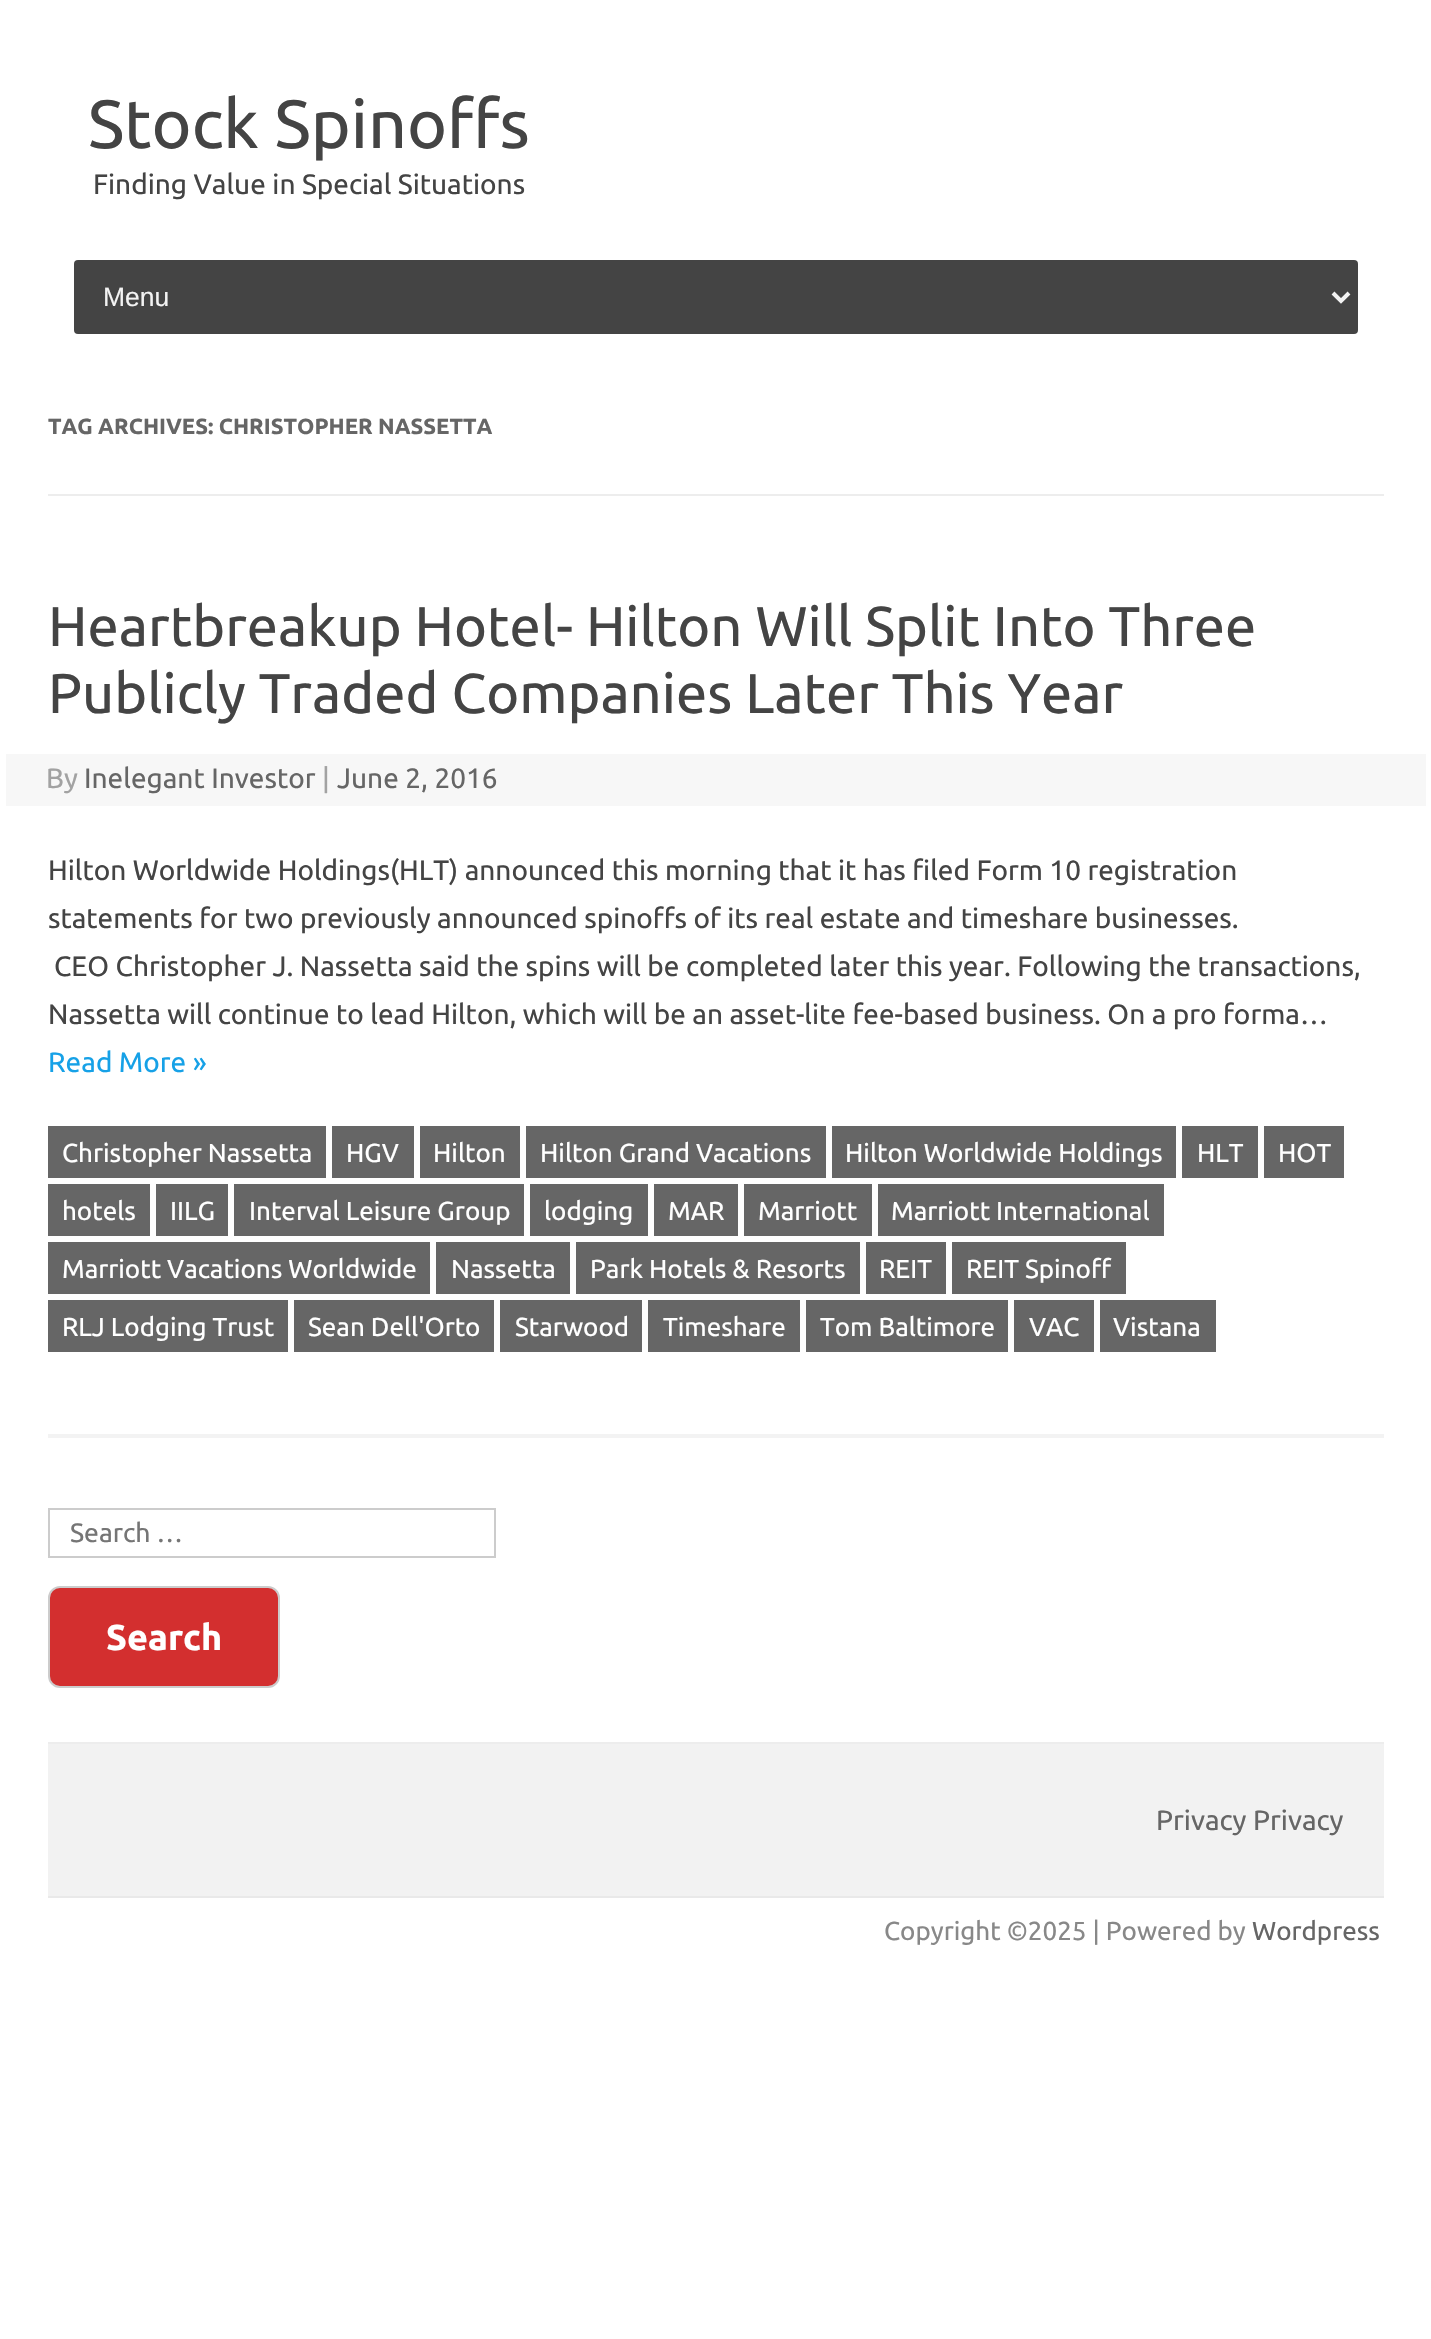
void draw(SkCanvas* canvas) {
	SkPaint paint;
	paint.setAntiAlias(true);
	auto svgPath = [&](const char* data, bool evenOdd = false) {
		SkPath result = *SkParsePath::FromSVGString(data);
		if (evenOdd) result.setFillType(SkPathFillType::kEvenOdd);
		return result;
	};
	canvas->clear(0xffffffff);
	SkFont f1(fontMgr->matchFamilyStyle("Ubuntu", SkFontStyle::Normal()), 68);
	f1.setSubpixel(true);
	paint.setColor(0xff444444);
	canvas->drawString("Stock Spinoffs", 88, 148, f1, paint);
	SkFont f2(fontMgr->matchFamilyStyle("Ubuntu", SkFontStyle::Normal()), 28);
	f2.setSubpixel(true);
	canvas->drawString("Finding Value in Special Situations", 93, 194, f2, paint);
	canvas->drawRoundRect(SkRect::MakeXYWH(74, 260, 1284, 74), 4, 4, paint);
	paint.setStroke(true);
	paint.setStrokeWidth(4);
	paint.setColor(0xfff3f3f3);
	canvas->drawPath(svgPath("M1333 293L1341 301L1349 293"), paint);
	SkFont f3(fontMgr->matchFamilyStyle("Liberation Sans", SkFontStyle::Normal()), 26.5);
	f3.setSubpixel(true);
	paint.setStroke(false);
	canvas->drawString("Menu", 103, 306, f3, paint);
	paint.setColor(0xffededed);
	canvas->drawRect(SkRect::MakeXYWH(48, 494, 1336, 2), paint);
	SkFont f4(fontMgr->matchFamilyStyle("Ubuntu", SkFontStyle::Bold()), 22);
	f4.setSubpixel(true);
	paint.setColor(0xff666666);
	canvas->drawString("TAG ARCHIVES: CHRISTOPHER NASSETTA", 48, 434, f4, paint);
	paint.setColor(0xfff3f3f3);
	canvas->drawRect(SkRect::MakeXYWH(48, 1434, 1336, 4), paint);
	SkFont f5(fontMgr->matchFamilyStyle("Ubuntu", SkFontStyle::Normal()), 56);
	f5.setSubpixel(true);
	paint.setColor(0xff444444);
	canvas->drawString("Heartbreakup Hotel- Hilton Will Split Into Three", 48, 646, f5, paint);
	canvas->drawString("Publicly Traded Companies Later This Year", 48, 713, f5, paint);
	paint.setColor(0xfff7f7f7);
	canvas->drawRect(SkRect::MakeXYWH(6, 754, 1420, 52), paint);
	paint.setColor(0xffa2a2a2);
	canvas->drawString("By", 46, 788, f2, paint);
	paint.setColor(0xff666666);
	canvas->drawString("Inelegant Investor", 84, 788, f2, paint);
	paint.setColor(0xffa2a2a2);
	canvas->drawString("|", 322, 788, f2, paint);
	paint.setColor(0xff666666);
	canvas->drawString("June 2, 2016", 337, 788, f2, paint);
	paint.setColor(0xff444444);
	canvas->drawString("Hilton Worldwide Holdings(HLT) announced this morning that it has filed Form 10 registration", 48, 880, f2, paint);
	canvas->drawString("statements for two previously announced spinoffs of its real estate and timeshare businesses.", 48, 928, f2, paint);
	canvas->drawString("CEO Christopher J. Nassetta said the spins will be completed later this year. Following the transactions,", 54, 976, f2, paint);
	canvas->drawString("Nassetta will continue to lead Hilton, which will be an asset-lite fee-based business. On a pro forma…", 48, 1024, f2, paint);
	paint.setColor(0xff16a1e7);
	canvas->drawString("Read More »", 48, 1072, f2, paint);
	paint.setColor(0xff666666);
	canvas->drawRect(SkRect::MakeXYWH(48, 1126, 278, 52), paint);
	SkFont f6(fontMgr->matchFamilyStyle("Ubuntu", SkFontStyle::Normal()), 26);
	f6.setSubpixel(true);
	paint.setColor(0xffffffff);
	canvas->drawString("Christopher Nassetta", 62, 1162, f6, paint);
	paint.setColor(0xff666666);
	canvas->drawRect(SkRect::MakeXYWH(332, 1126, 82, 52), paint);
	paint.setColor(0xffffffff);
	canvas->drawString("HGV", 346, 1162, f6, paint);
	paint.setColor(0xff666666);
	canvas->drawRect(SkRect::MakeXYWH(420, 1126, 100, 52), paint);
	paint.setColor(0xffffffff);
	canvas->drawString("Hilton", 433, 1162, f6, paint);
	paint.setColor(0xff666666);
	canvas->drawRect(SkRect::MakeXYWH(526, 1126, 300, 52), paint);
	paint.setColor(0xffffffff);
	canvas->drawString("Hilton Grand Vacations", 540, 1162, f6, paint);
	paint.setColor(0xff666666);
	canvas->drawRect(SkRect::MakeXYWH(832, 1126, 344, 52), paint);
	paint.setColor(0xffffffff);
	canvas->drawString("Hilton Worldwide Holdings", 845, 1162, f6, paint);
	paint.setColor(0xff666666);
	canvas->drawRect(SkRect::MakeXYWH(1182, 1126, 76, 52), paint);
	paint.setColor(0xffffffff);
	canvas->drawString("HLT", 1197, 1162, f6, paint);
	paint.setColor(0xff666666);
	canvas->drawRect(SkRect::MakeXYWH(1264, 1126, 80, 52), paint);
	paint.setColor(0xffffffff);
	canvas->drawString("HOT", 1278, 1162, f6, paint);
	paint.setColor(0xff666666);
	canvas->drawRect(SkRect::MakeXYWH(48, 1184, 102, 52), paint);
	paint.setColor(0xffffffff);
	canvas->drawString("hotels", 62, 1220, f6, paint);
	paint.setColor(0xff666666);
	canvas->drawRect(SkRect::MakeXYWH(156, 1184, 72, 52), paint);
	paint.setColor(0xffffffff);
	canvas->drawString("IILG", 170, 1220, f6, paint);
	paint.setColor(0xff666666);
	canvas->drawRect(SkRect::MakeXYWH(234, 1184, 290, 52), paint);
	paint.setColor(0xffffffff);
	canvas->drawString("Interval Leisure Group", 249, 1220, f6, paint);
	paint.setColor(0xff666666);
	canvas->drawRect(SkRect::MakeXYWH(530, 1184, 118, 52), paint);
	paint.setColor(0xffffffff);
	canvas->drawString("lodging", 544, 1220, f6, paint);
	paint.setColor(0xff666666);
	canvas->drawRect(SkRect::MakeXYWH(654, 1184, 84, 52), paint);
	paint.setColor(0xffffffff);
	canvas->drawString("MAR", 668, 1220, f6, paint);
	paint.setColor(0xff666666);
	canvas->drawRect(SkRect::MakeXYWH(744, 1184, 128, 52), paint);
	paint.setColor(0xffffffff);
	canvas->drawString("Marriott", 758, 1220, f6, paint);
	paint.setColor(0xff666666);
	canvas->drawRect(SkRect::MakeXYWH(878, 1184, 286, 52), paint);
	paint.setColor(0xffffffff);
	canvas->drawString("Marriott International", 891, 1220, f6, paint);
	paint.setColor(0xff666666);
	canvas->drawRect(SkRect::MakeXYWH(48, 1242, 382, 52), paint);
	paint.setColor(0xffffffff);
	canvas->drawString("Marriott Vacations Worldwide", 62, 1278, f6, paint);
	paint.setColor(0xff666666);
	canvas->drawRect(SkRect::MakeXYWH(436, 1242, 134, 52), paint);
	paint.setColor(0xffffffff);
	canvas->drawString("Nassetta", 451, 1278, f6, paint);
	paint.setColor(0xff666666);
	canvas->drawRect(SkRect::MakeXYWH(576, 1242, 284, 52), paint);
	paint.setColor(0xffffffff);
	canvas->drawString("Park Hotels & Resorts", 590, 1278, f6, paint);
	paint.setColor(0xff666666);
	canvas->drawRect(SkRect::MakeXYWH(866, 1242, 80, 52), paint);
	paint.setColor(0xffffffff);
	canvas->drawString("REIT", 879, 1278, f6, paint);
	paint.setColor(0xff666666);
	canvas->drawRect(SkRect::MakeXYWH(952, 1242, 174, 52), paint);
	paint.setColor(0xffffffff);
	canvas->drawString("REIT Spinoff", 966, 1278, f6, paint);
	paint.setColor(0xff666666);
	canvas->drawRect(SkRect::MakeXYWH(48, 1300, 240, 52), paint);
	paint.setColor(0xffffffff);
	canvas->drawString("RLJ Lodging Trust", 62, 1336, f6, paint);
	paint.setColor(0xff666666);
	canvas->drawRect(SkRect::MakeXYWH(294, 1300, 200, 52), paint);
	paint.setColor(0xffffffff);
	canvas->drawString("Sean Dell'Orto", 308, 1336, f6, paint);
	paint.setColor(0xff666666);
	canvas->drawRect(SkRect::MakeXYWH(500, 1300, 142, 52), paint);
	paint.setColor(0xffffffff);
	canvas->drawString("Starwood", 515, 1336, f6, paint);
	paint.setColor(0xff666666);
	canvas->drawRect(SkRect::MakeXYWH(648, 1300, 152, 52), paint);
	paint.setColor(0xffffffff);
	canvas->drawString("Timeshare", 663, 1336, f6, paint);
	paint.setColor(0xff666666);
	canvas->drawRect(SkRect::MakeXYWH(806, 1300, 202, 52), paint);
	paint.setColor(0xffffffff);
	canvas->drawString("Tom Baltimore", 820, 1336, f6, paint);
	paint.setColor(0xff666666);
	canvas->drawRect(SkRect::MakeXYWH(1014, 1300, 80, 52), paint);
	paint.setColor(0xffffffff);
	canvas->drawString("VAC", 1029, 1336, f6, paint);
	paint.setColor(0xff666666);
	canvas->drawRect(SkRect::MakeXYWH(1100, 1300, 116, 52), paint);
	paint.setColor(0xffffffff);
	canvas->drawString("Vistana", 1113, 1336, f6, paint);
	paint.setStroke(true);
	paint.setStrokeWidth(2);
	paint.setColor(0xffcccccc);
	canvas->drawRect(SkRect::MakeXYWH(49, 1509, 446, 48), paint);
	SkFont f7(fontMgr->matchFamilyStyle("Ubuntu", SkFontStyle::Normal()), 26.5);
	f7.setSubpixel(true);
	paint.setStroke(false);
	paint.setColor(0xff757575);
	canvas->drawString("Search …", 70, 1542, f7, paint);
	paint.setColor(0xffd32f2f);
	canvas->drawRoundRect(SkRect::MakeXYWH(49, 1587, 230, 100), 11, 11, paint);
	paint.setStroke(true);
	paint.setColor(0xffcccccc);
	canvas->drawRoundRect(SkRect::MakeXYWH(49, 1587, 230, 100), 11, 11, paint);
	SkFont f8(fontMgr->matchFamilyStyle("Ubuntu", SkFontStyle::Bold()), 36);
	f8.setSubpixel(true);
	paint.setStroke(false);
	paint.setColor(0xffffffff);
	canvas->drawString("Search", 106, 1650, f8, paint);
	paint.setColor(0xfff2f2f2);
	canvas->drawRect(SkRect::MakeXYWH(48, 1744, 1336, 152), paint);
	paint.setColor(0xffededed);
	canvas->drawRect(SkRect::MakeXYWH(48, 1742, 1336, 2), paint);
	paint.setColor(0xffe9e9e9);
	canvas->drawRect(SkRect::MakeXYWH(48, 1896, 1336, 2), paint);
	paint.setColor(0xff666666);
	canvas->drawString("Privacy Privacy", 1156, 1830, f2, paint);
	paint.setColor(0xff888888);
	canvas->drawString("Copyright ©2025 | Powered by", 884, 1940, f6, paint);
	paint.setColor(0xff666666);
	canvas->drawString("Wordpress", 1252, 1940, f6, paint);
}
